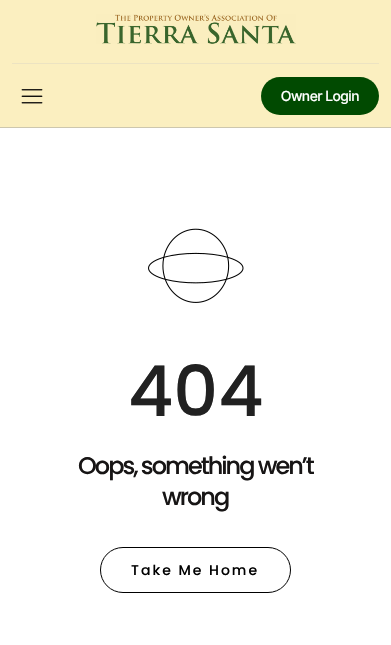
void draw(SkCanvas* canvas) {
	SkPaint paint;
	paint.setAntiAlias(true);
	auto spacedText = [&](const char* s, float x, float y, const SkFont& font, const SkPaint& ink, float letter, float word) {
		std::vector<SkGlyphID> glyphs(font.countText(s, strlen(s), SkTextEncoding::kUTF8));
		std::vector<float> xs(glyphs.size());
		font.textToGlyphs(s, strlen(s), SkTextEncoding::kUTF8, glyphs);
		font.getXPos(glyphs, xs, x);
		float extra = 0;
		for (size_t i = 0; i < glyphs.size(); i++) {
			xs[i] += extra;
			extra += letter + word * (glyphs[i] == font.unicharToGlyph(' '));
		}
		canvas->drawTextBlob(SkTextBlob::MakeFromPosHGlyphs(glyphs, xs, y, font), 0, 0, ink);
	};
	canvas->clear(0xffffffff);
	paint.setColor(0xfffbefc0);
	canvas->drawRect(SkRect::MakeXYWH(0, 0, 391, 127), paint);
	paint.setColor(0xffcdc7ae);
	canvas->drawRect(SkRect::MakeXYWH(0, 127, 391, 1), paint);
	paint.setColor(0xffece3c2);
	canvas->drawRect(SkRect::MakeXYWH(12, 63, 367, 1), paint);
	canvas->drawImageRect(SkImages::DeferredFromEncodedData(SkData::MakeFromFileName("img1.png")), SkRect::MakeXYWH(96, 14, 200, 30), SkSamplingOptions());
	canvas->drawImageRect(SkImages::DeferredFromEncodedData(SkData::MakeFromFileName("img2.png")), SkRect::MakeXYWH(21, 89, 22, 15), SkSamplingOptions());
	paint.setColor(0xff014a01);
	canvas->drawRoundRect(SkRect::MakeXYWH(261, 77, 118, 38), 19, 19, paint);
	SkFont f1(fontMgr->matchFamilyStyle("Inter Tight", SkFontStyle(500, SkFontStyle::kNormal_Width, SkFontStyle::kUpright_Slant)), 14);
	f1.setSubpixel(true);
	paint.setColor(0xffffffff);
	canvas->drawString("Owner Login", 281, 101, f1, paint);
	canvas->drawImageRect(SkImages::DeferredFromEncodedData(SkData::MakeFromFileName("img3.png")), SkRect::MakeXYWH(148, 228, 96, 75), SkSamplingOptions());
	SkFont f2(fontMgr->matchFamilyStyle("Poppins", SkFontStyle(500, SkFontStyle::kNormal_Width, SkFontStyle::kUpright_Slant)), 70);
	f2.setSubpixel(true);
	paint.setColor(0xff212121);
	canvas->drawString("404", 128, 416, f2, paint);
	SkFont f3(fontMgr->matchFamilyStyle("Poppins", SkFontStyle(500, SkFontStyle::kNormal_Width, SkFontStyle::kUpright_Slant)), 24);
	f3.setSubpixel(true);
	paint.setColor(0xff171515);
	spacedText("Oops, something wen’t", 78, 474, f3, paint, -2, 0);
	spacedText("wrong", 162, 505, f3, paint, -2, 0);
	paint.setStroke(true);
	paint.setStrokeWidth(1);
	paint.setColor(0xff000000);
	canvas->drawRoundRect(SkRect::MakeXYWH(100.5, 547.5, 190, 45), 22.5, 22.5, paint);
	SkFont f4(fontMgr->matchFamilyStyle("Poppins", SkFontStyle(500, SkFontStyle::kNormal_Width, SkFontStyle::kUpright_Slant)), 14);
	f4.setSubpixel(true);
	paint.setStroke(false);
	spacedText("Take Me Home", 131, 575, f4, paint, 2, 0);
}
